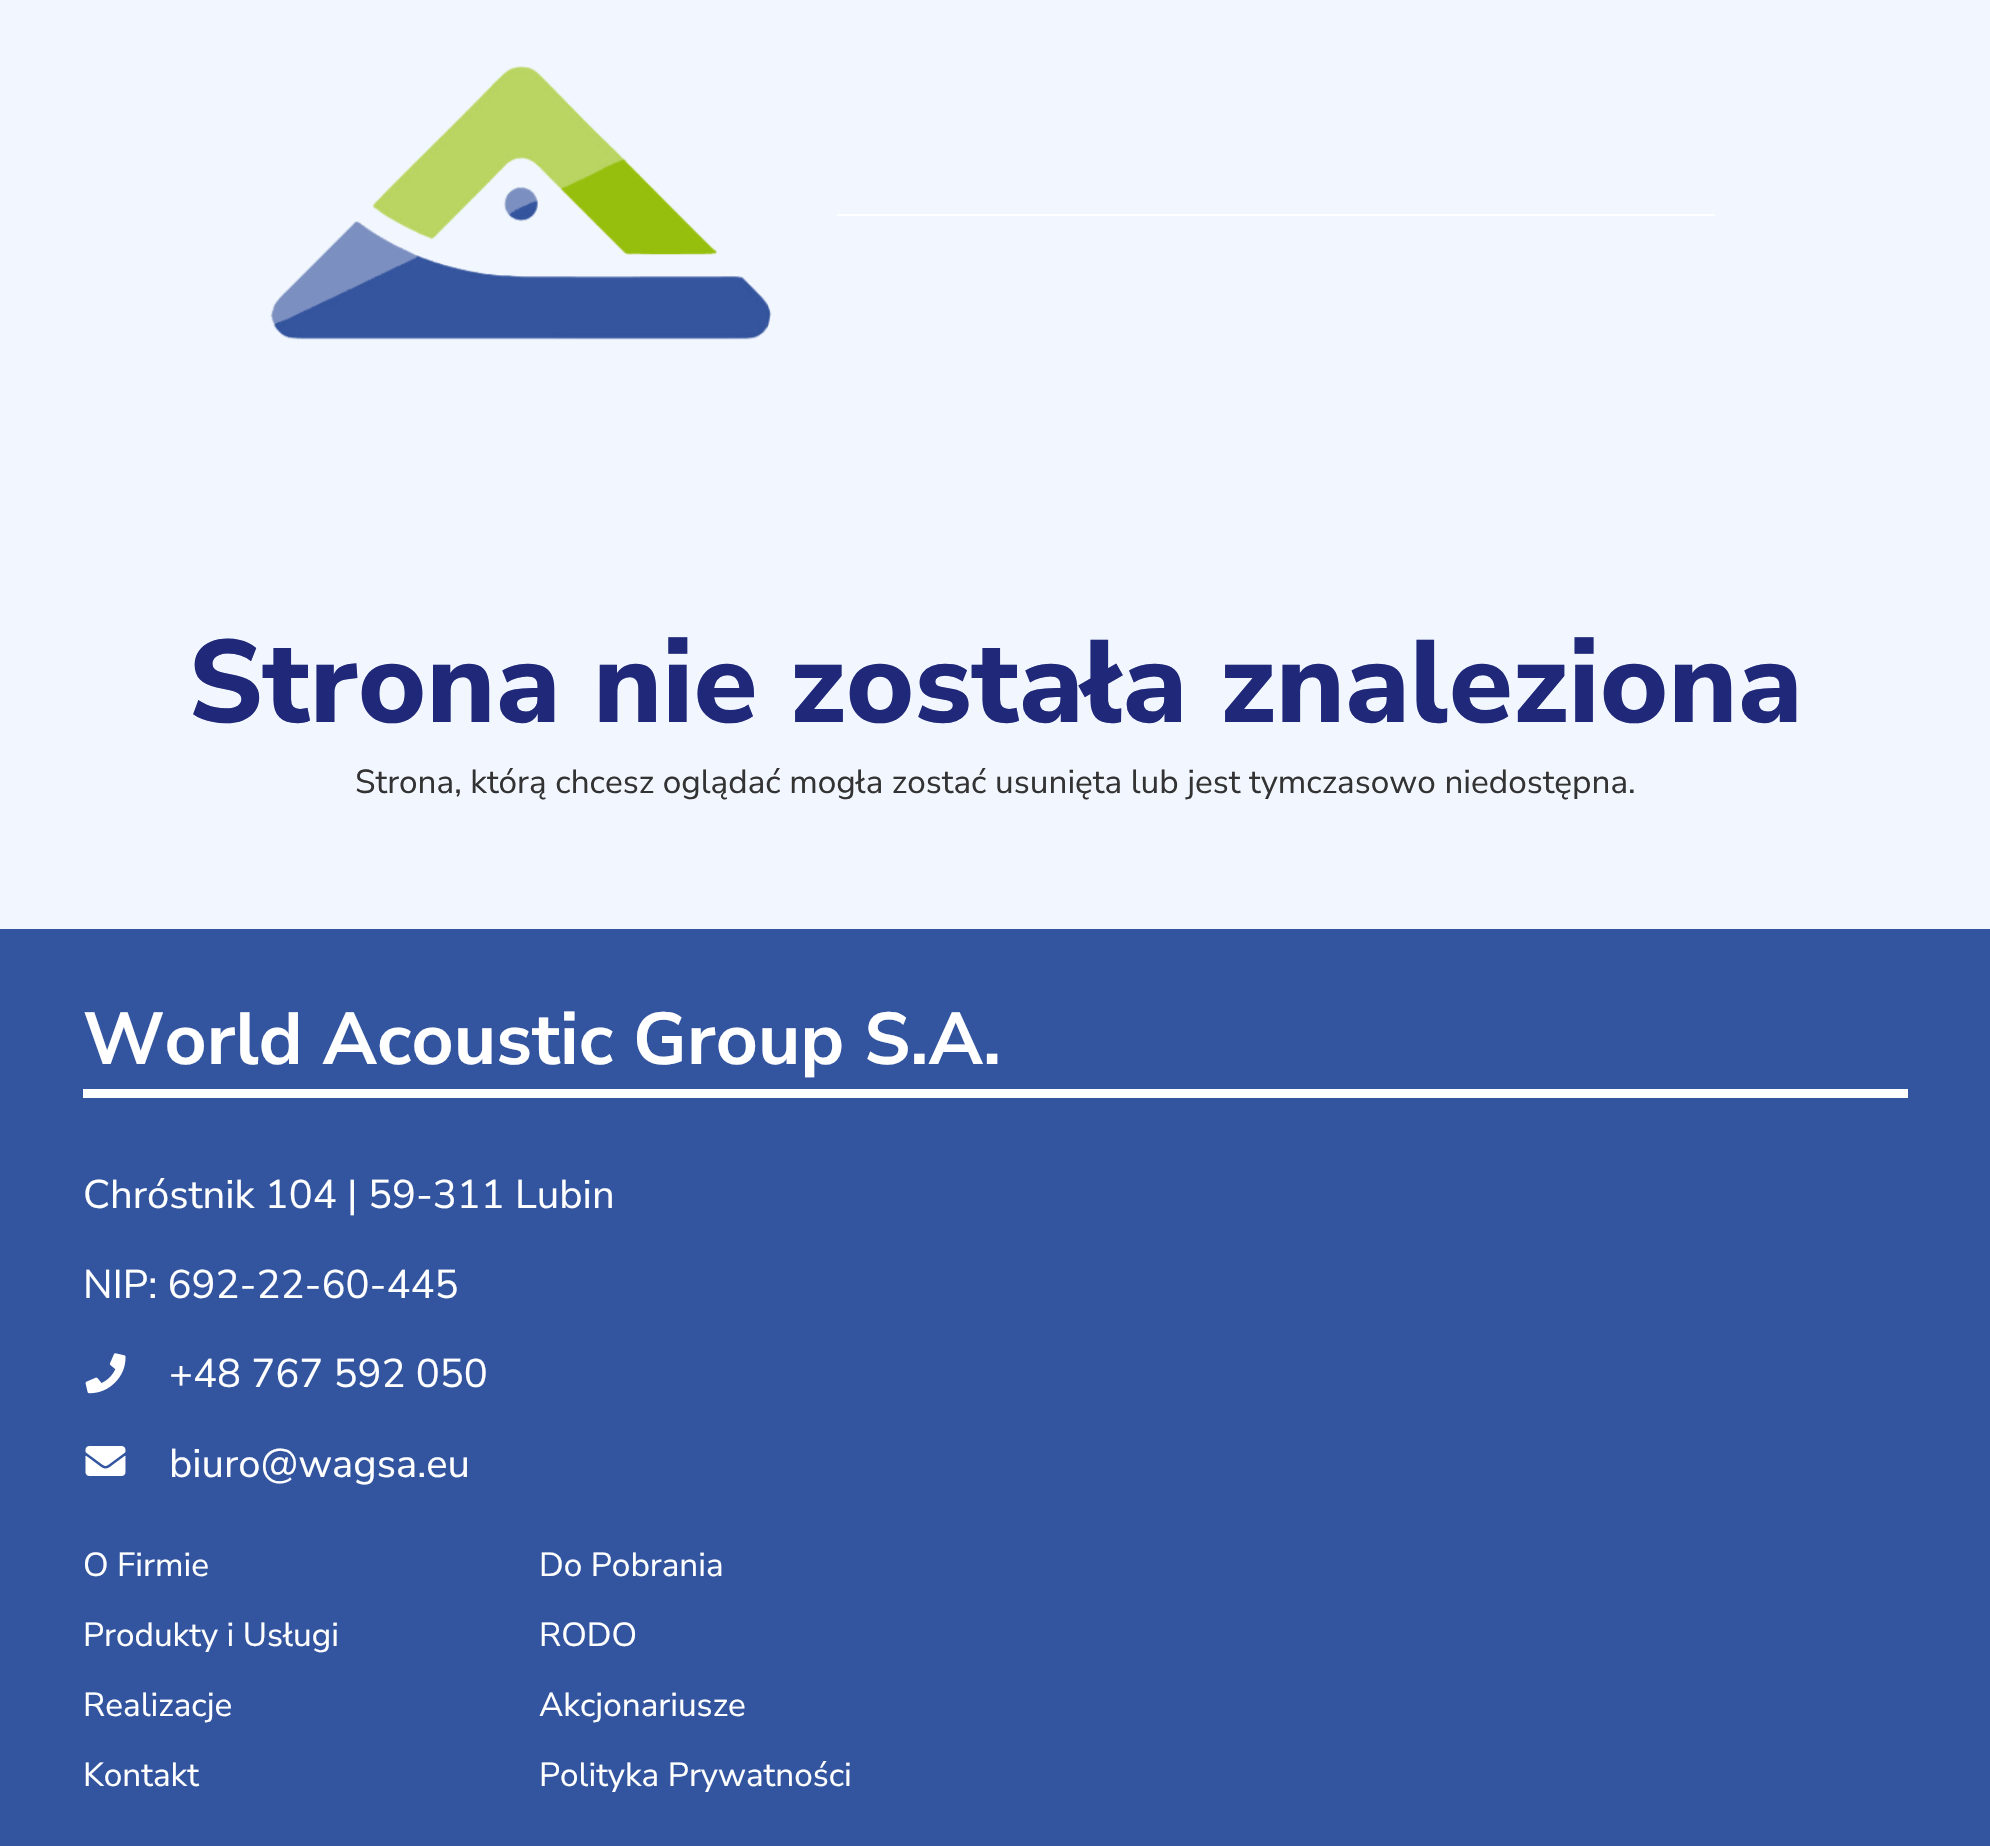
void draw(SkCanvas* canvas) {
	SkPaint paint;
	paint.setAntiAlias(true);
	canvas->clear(0xfff2f7ff);
	canvas->drawImageRect(SkImages::DeferredFromEncodedData(SkData::MakeFromFileName("img1.png")), SkRect::MakeXYWH(270, 66, 502, 274), SkSamplingOptions());
	paint.setColor(0xffffffff);
	canvas->drawRect(SkRect::MakeXYWH(837, 214, 878, 2), paint);
	SkFont f1(fontMgr->matchFamilyStyle("Nunito Sans", SkFontStyle(800, SkFontStyle::kNormal_Width, SkFontStyle::kUpright_Slant)), 116.5);
	f1.setSubpixel(true);
	paint.setColor(0xff1f2879);
	canvas->drawString("Strona nie została znaleziona", 188, 722, f1, paint);
	SkFont f2(fontMgr->matchFamilyStyle("Nunito Sans", SkFontStyle::Normal()), 33.3);
	f2.setSubpixel(true);
	paint.setColor(0xff333333);
	canvas->drawString("Strona, którą chcesz oglądać mogła zostać usunięta lub jest tymczasowo niedostępna.", 355, 793, f2, paint);
	paint.setColor(0xff33559f);
	canvas->drawRect(SkRect::MakeXYWH(0, 929, 1990, 917), paint);
	SkFont f3(fontMgr->matchFamilyStyle("Nunito Sans", SkFontStyle::Bold()), 73.25);
	f3.setSubpixel(true);
	paint.setColor(0xffffffff);
	canvas->drawString("World Acoustic Group S.A.", 83, 1064, f3, paint);
	canvas->drawRect(SkRect::MakeXYWH(83, 1089, 1825, 9), paint);
	SkFont f4(fontMgr->matchFamilyStyle("Nunito Sans", SkFontStyle::Normal()), 40);
	f4.setSubpixel(true);
	canvas->drawString("Chróstnik 104 | 59-311 Lubin", 83, 1208, f4, paint);
	canvas->drawString("NIP: 692-22-60-445", 83, 1298, f4, paint);
	canvas->drawImageRect(SkImages::DeferredFromEncodedData(SkData::MakeFromFileName("img2.png")), SkRect::MakeXYWH(85, 1353, 41, 41), SkSamplingOptions());
	canvas->drawString("+48 767 592 050", 169, 1387, f4, paint);
	canvas->drawImageRect(SkImages::DeferredFromEncodedData(SkData::MakeFromFileName("img3.png")), SkRect::MakeXYWH(85, 1446, 41, 30), SkSamplingOptions());
	canvas->drawString("biuro@wagsa.eu", 169, 1477, f4, paint);
	canvas->drawString("O Firmie", 83, 1576, f2, paint);
	canvas->drawString("Produkty i Usługi", 83, 1646, f2, paint);
	canvas->drawString("Realizacje", 83, 1716, f2, paint);
	canvas->drawString("Kontakt", 83, 1786, f2, paint);
	canvas->drawString("Do Pobrania", 539, 1576, f2, paint);
	canvas->drawString("RODO", 539, 1646, f2, paint);
	canvas->drawString("Akcjonariusze", 539, 1716, f2, paint);
	canvas->drawString("Polityka Prywatności", 539, 1786, f2, paint);
}
